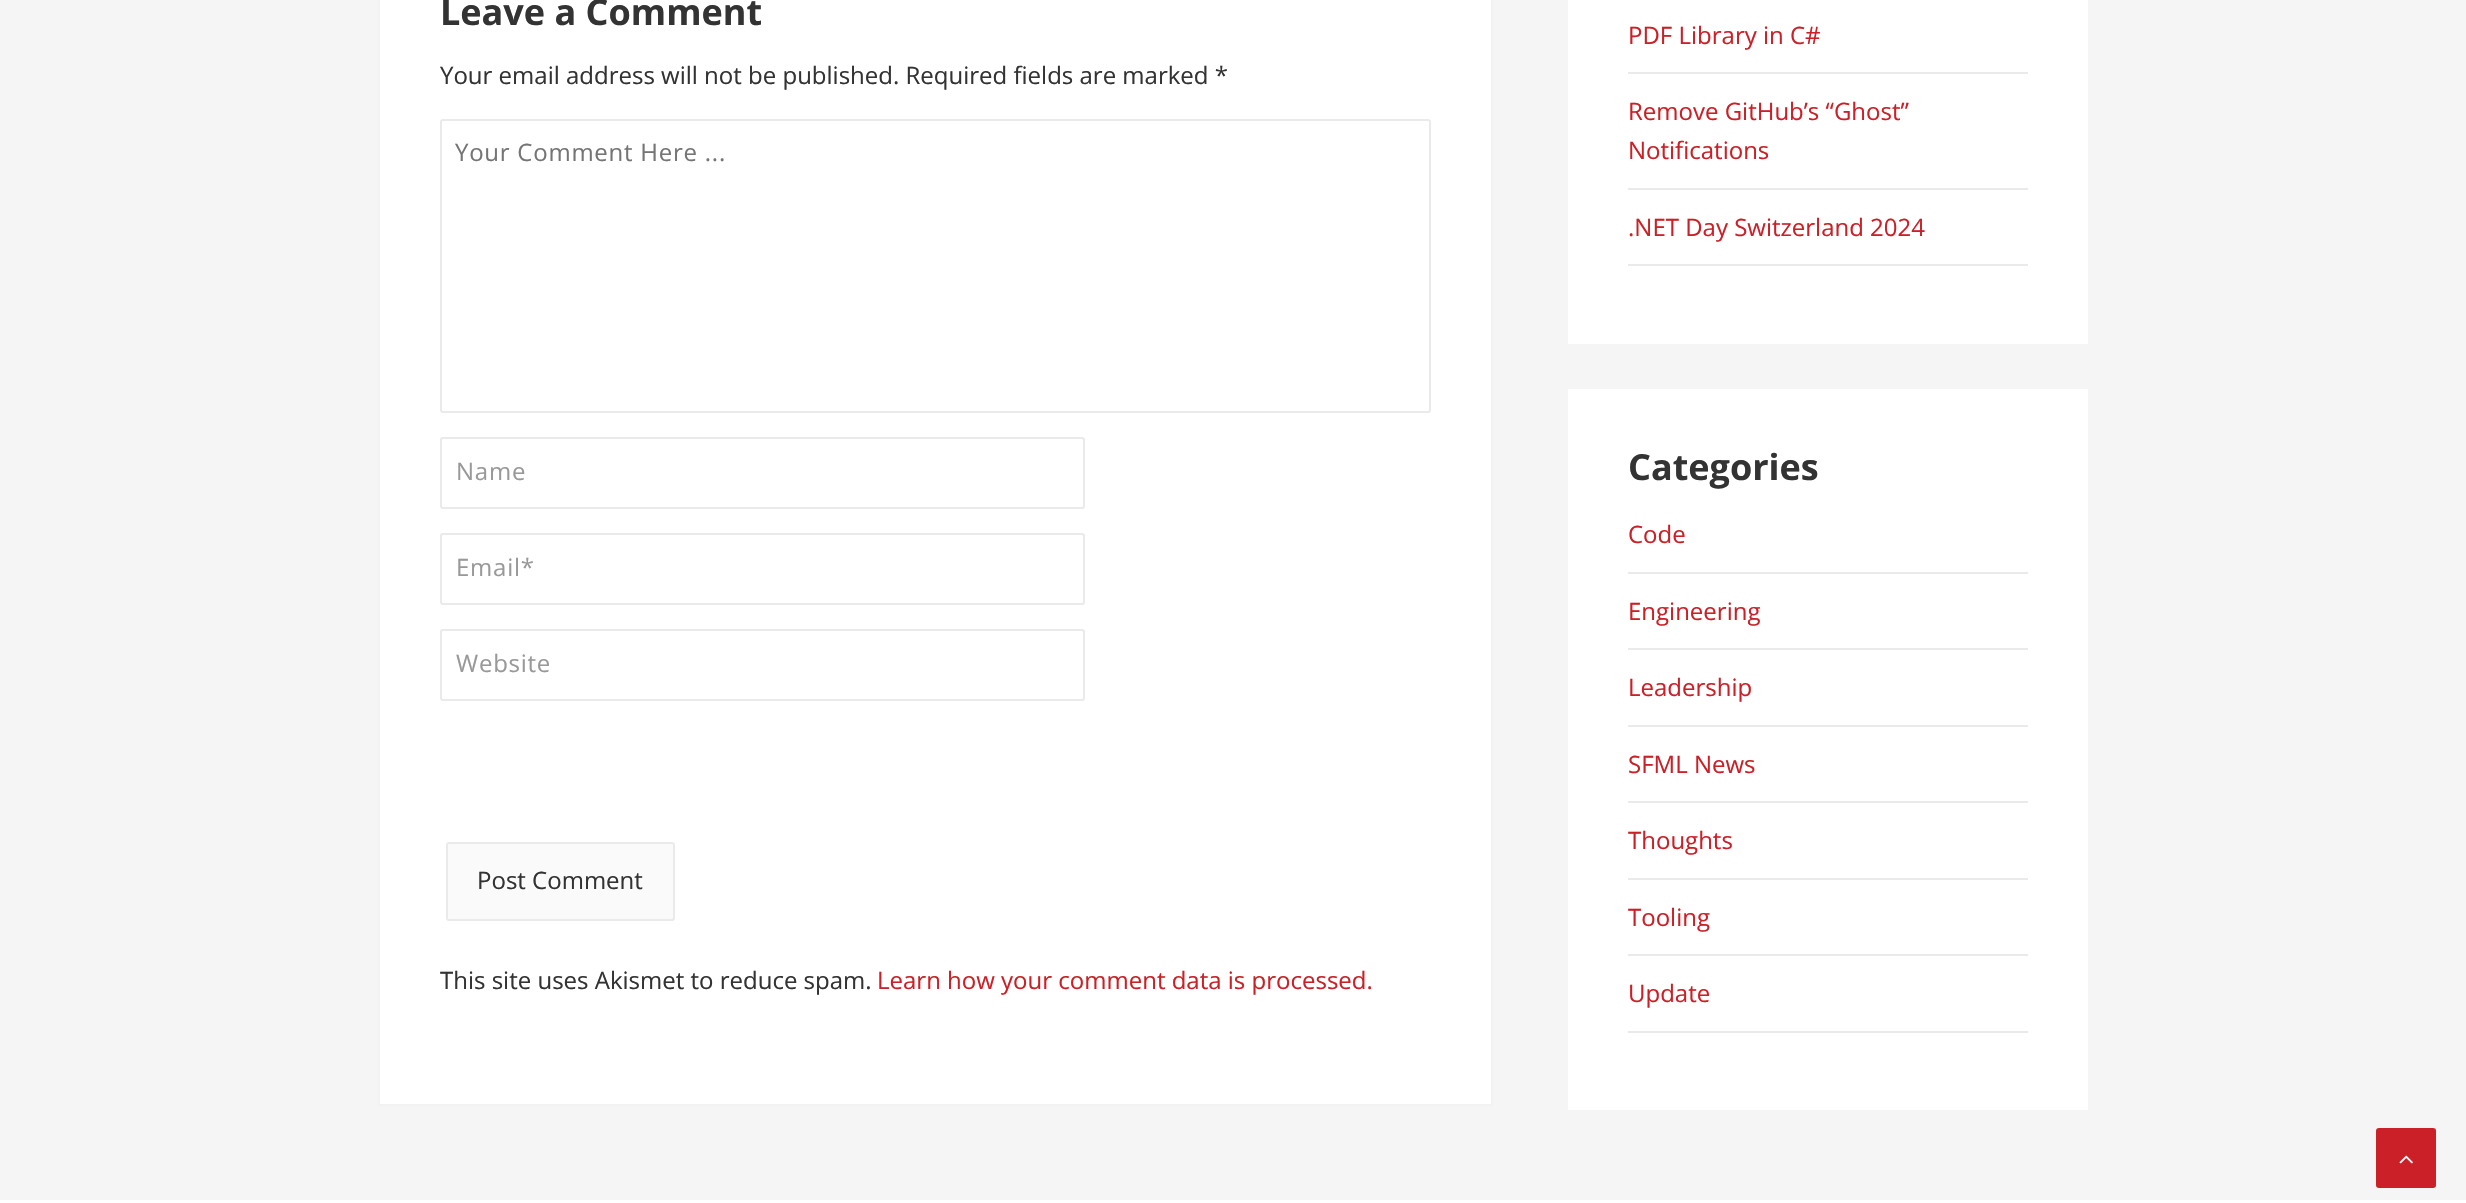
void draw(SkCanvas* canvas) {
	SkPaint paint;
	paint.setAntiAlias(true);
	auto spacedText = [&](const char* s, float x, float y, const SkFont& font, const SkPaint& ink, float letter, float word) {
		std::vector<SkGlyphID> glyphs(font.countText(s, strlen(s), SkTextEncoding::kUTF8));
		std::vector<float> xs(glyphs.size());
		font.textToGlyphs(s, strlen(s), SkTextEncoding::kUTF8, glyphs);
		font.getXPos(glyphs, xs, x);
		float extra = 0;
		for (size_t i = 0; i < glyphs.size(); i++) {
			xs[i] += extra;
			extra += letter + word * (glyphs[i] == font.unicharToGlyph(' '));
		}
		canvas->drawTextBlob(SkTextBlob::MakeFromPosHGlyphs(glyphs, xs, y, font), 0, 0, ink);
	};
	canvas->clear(0xfff5f5f5);
	paint.setColor(0xffffffff);
	canvas->drawRect(SkRect::MakeXYWH(379, -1, 1113, 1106), paint);
	paint.setStroke(true);
	paint.setStrokeWidth(2);
	paint.setColor(0xfff2f2f2);
	canvas->drawRect(SkRect::MakeXYWH(379, -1, 1113, 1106), paint);
	SkFont f1(fontMgr->matchFamilyStyle("Open Sans", SkFontStyle::Bold()), 36);
	f1.setSubpixel(true);
	paint.setStroke(false);
	paint.setColor(0xff333333);
	canvas->drawString("Leave a Comment", 440, 25, f1, paint);
	SkFont f2(fontMgr->matchFamilyStyle("Open Sans", SkFontStyle::Normal()), 24);
	f2.setSubpixel(true);
	canvas->drawString("Your email address will not be published. Required fields are marked *", 440, 84, f2, paint);
	paint.setStroke(true);
	paint.setColor(0xffeaeaea);
	canvas->drawRoundRect(SkRect::MakeXYWH(441, 120, 989, 292), 2, 2, paint);
	paint.setStroke(false);
	paint.setColor(0xff757575);
	spacedText("Your Comment Here ...", 455, 161, f2, paint, 0.75, 0);
	paint.setStroke(true);
	paint.setColor(0xffeaeaea);
	canvas->drawRoundRect(SkRect::MakeXYWH(441, 438, 643, 70), 2, 2, paint);
	paint.setStroke(false);
	paint.setColor(0xff999999);
	spacedText("Name", 456, 480, f2, paint, 0.75, 0);
	paint.setStroke(true);
	paint.setColor(0xffeaeaea);
	canvas->drawRoundRect(SkRect::MakeXYWH(441, 534, 643, 70), 2, 2, paint);
	paint.setStroke(false);
	paint.setColor(0xff999999);
	spacedText("Email*", 456, 576, f2, paint, 0.75, 0);
	paint.setStroke(true);
	paint.setColor(0xffeaeaea);
	canvas->drawRoundRect(SkRect::MakeXYWH(441, 630, 643, 70), 2, 2, paint);
	paint.setStroke(false);
	paint.setColor(0xff999999);
	spacedText("Website", 456, 672, f2, paint, 0.75, 0);
	paint.setColor(0xfffafafa);
	canvas->drawRoundRect(SkRect::MakeXYWH(447, 843, 227, 77), 2, 2, paint);
	paint.setStroke(true);
	paint.setColor(0xffeaeaea);
	canvas->drawRoundRect(SkRect::MakeXYWH(447, 843, 227, 77), 2, 2, paint);
	paint.setStroke(false);
	paint.setColor(0xff333333);
	canvas->drawString("Post Comment", 477, 889, f2, paint);
	canvas->drawString("This site uses Akismet to reduce spam.", 440, 989, f2, paint);
	paint.setColor(0xffcb2027);
	canvas->drawString("Learn how your comment data is processed.", 877, 989, f2, paint);
	paint.setColor(0xffffffff);
	canvas->drawRect(SkRect::MakeXYWH(1568, 0, 520, 344), paint);
	paint.setColor(0xffeaeaea);
	canvas->drawRect(SkRect::MakeXYWH(1628, 72, 400, 2), paint);
	paint.setColor(0xffcb2027);
	canvas->drawString("PDF Library in C#", 1628, 44, f2, paint);
	paint.setColor(0xffeaeaea);
	canvas->drawRect(SkRect::MakeXYWH(1628, 188, 400, 2), paint);
	paint.setColor(0xffcb2027);
	canvas->drawString("Remove GitHub’s “Ghost”", 1628, 120, f2, paint);
	canvas->drawString("Notifications", 1628, 159, f2, paint);
	paint.setColor(0xffeaeaea);
	canvas->drawRect(SkRect::MakeXYWH(1628, 264, 400, 2), paint);
	paint.setColor(0xffcb2027);
	canvas->drawString(".NET Day Switzerland 2024", 1628, 236, f2, paint);
	paint.setColor(0xffffffff);
	canvas->drawRect(SkRect::MakeXYWH(1568, 389, 520, 721), paint);
	paint.setColor(0xff333333);
	canvas->drawString("Categories", 1628, 480, f1, paint);
	paint.setColor(0xffeaeaea);
	canvas->drawRect(SkRect::MakeXYWH(1628, 572, 400, 2), paint);
	paint.setColor(0xffcb2027);
	canvas->drawString("Code", 1628, 543, f2, paint);
	paint.setColor(0xffeaeaea);
	canvas->drawRect(SkRect::MakeXYWH(1628, 648, 400, 2), paint);
	paint.setColor(0xffcb2027);
	canvas->drawString("Engineering", 1628, 620, f2, paint);
	paint.setColor(0xffeaeaea);
	canvas->drawRect(SkRect::MakeXYWH(1628, 725, 400, 2), paint);
	paint.setColor(0xffcb2027);
	canvas->drawString("Leadership", 1628, 696, f2, paint);
	paint.setColor(0xffeaeaea);
	canvas->drawRect(SkRect::MakeXYWH(1628, 801, 400, 2), paint);
	paint.setColor(0xffcb2027);
	canvas->drawString("SFML News", 1628, 773, f2, paint);
	paint.setColor(0xffeaeaea);
	canvas->drawRect(SkRect::MakeXYWH(1628, 878, 400, 2), paint);
	paint.setColor(0xffcb2027);
	canvas->drawString("Thoughts", 1628, 849, f2, paint);
	paint.setColor(0xffeaeaea);
	canvas->drawRect(SkRect::MakeXYWH(1628, 954, 400, 2), paint);
	paint.setColor(0xffcb2027);
	canvas->drawString("Tooling", 1628, 926, f2, paint);
	paint.setColor(0xffeaeaea);
	canvas->drawRect(SkRect::MakeXYWH(1628, 1031, 400, 2), paint);
	paint.setColor(0xffcb2027);
	canvas->drawString("Update", 1628, 1002, f2, paint);
	canvas->drawRoundRect(SkRect::MakeXYWH(2376, 1128, 60, 60), 3, 3, paint);
	canvas->drawImageRect(SkImages::DeferredFromEncodedData(SkData::MakeFromFileName("img1.png")), SkRect::MakeXYWH(2399, 1155, 14, 9), SkSamplingOptions());
	paint.setColor(0xffffffff);
	canvas->drawRect(SkRect::MakeXYWH(0, 1200, 2466, 3), paint);
}
